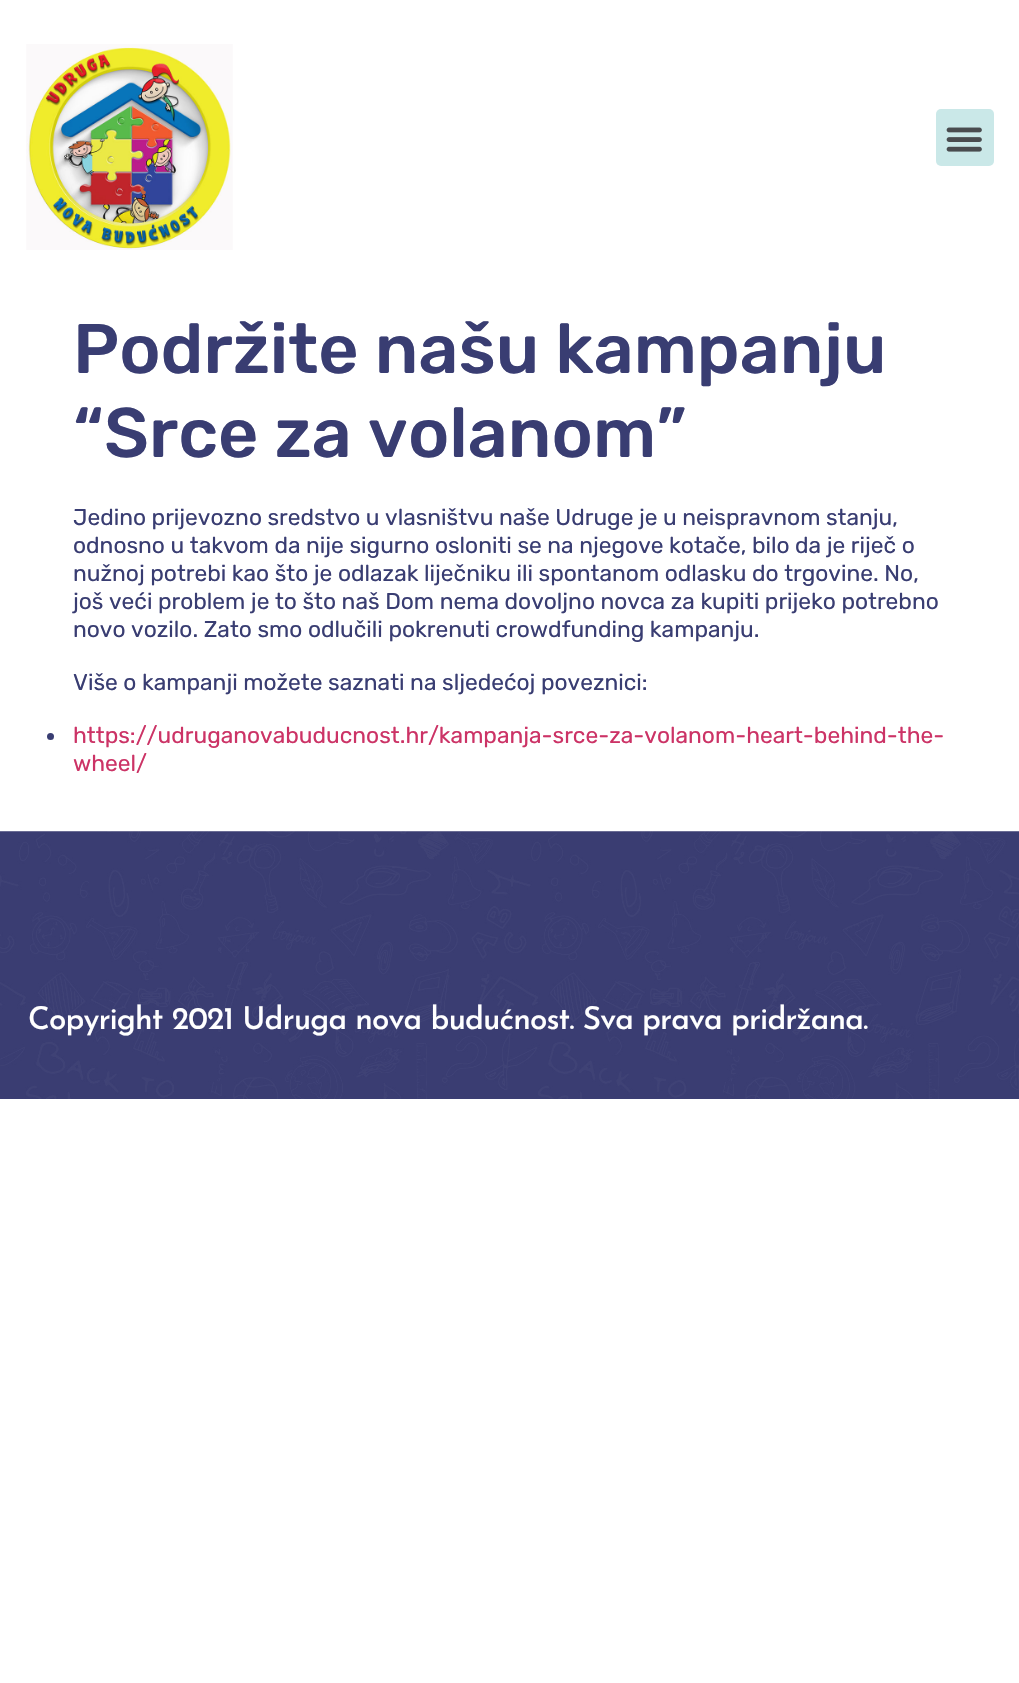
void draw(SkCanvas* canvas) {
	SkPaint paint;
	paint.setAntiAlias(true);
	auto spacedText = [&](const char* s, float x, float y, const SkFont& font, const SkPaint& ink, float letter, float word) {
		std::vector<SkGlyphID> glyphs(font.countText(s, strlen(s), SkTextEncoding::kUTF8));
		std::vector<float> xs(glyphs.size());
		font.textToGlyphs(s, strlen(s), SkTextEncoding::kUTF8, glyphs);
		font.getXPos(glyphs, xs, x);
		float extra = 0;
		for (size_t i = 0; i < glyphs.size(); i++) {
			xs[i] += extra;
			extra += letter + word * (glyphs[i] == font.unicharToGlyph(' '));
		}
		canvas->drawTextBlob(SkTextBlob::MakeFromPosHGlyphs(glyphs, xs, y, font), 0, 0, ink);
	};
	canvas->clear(0xffffffff);
	canvas->drawImageRect(SkImages::DeferredFromEncodedData(SkData::MakeFromFileName("img1.png")), SkRect::MakeXYWH(26, 44, 207, 206), SkSamplingOptions());
	paint.setColor(0xffcae8e8);
	canvas->drawRoundRect(SkRect::MakeXYWH(936, 109, 58, 57), 5, 5, paint);
	canvas->drawImageRect(SkImages::DeferredFromEncodedData(SkData::MakeFromFileName("img2.png")), SkRect::MakeXYWH(946, 127, 36, 25), SkSamplingOptions());
	SkFont f1(fontMgr->matchFamilyStyle("Rubik", SkFontStyle(500, SkFontStyle::kNormal_Width, SkFontStyle::kUpright_Slant)), 70);
	f1.setSubpixel(true);
	paint.setColor(0xff393d72);
	canvas->drawString("Podržite našu kampanju", 73, 373, f1, paint);
	canvas->drawString("“Srce za volanom”", 73, 457, f1, paint);
	SkFont f2(fontMgr->matchFamilyStyle("Rubik", SkFontStyle::Normal()), 22.75);
	f2.setSubpixel(true);
	canvas->drawString("Jedino prijevozno sredstvo u vlasništvu naše Udruge je u neispravnom stanju,", 73, 525, f2, paint);
	canvas->drawString("odnosno u takvom da nije sigurno osloniti se na njegove kotače, bilo da je riječ o", 73, 553, f2, paint);
	canvas->drawString("nužnoj potrebi kao što je odlazak liječniku ili spontanom odlasku do trgovine. No,", 73, 581, f2, paint);
	canvas->drawString("još veći problem je to što naš Dom nema dovoljno novca za kupiti prijeko potrebno", 73, 609, f2, paint);
	canvas->drawString("novo vozilo. Zato smo odlučili pokrenuti crowdfunding kampanju.", 73, 637, f2, paint);
	canvas->drawString("Više o kampanji možete saznati na sljedećoj poveznici:", 73, 690, f2, paint);
	canvas->drawCircle(50.5, 736.5, 3.5, paint);
	paint.setColor(0xffcc3366);
	canvas->drawString("https://udruganovabuducnost.hr/kampanja-srce-za-volanom-heart-behind-the-", 73, 743, f2, paint);
	canvas->drawString("wheel/", 73, 771, f2, paint);
	canvas->drawImageRect(SkImages::DeferredFromEncodedData(SkData::MakeFromFileName("img3.png")), SkRect::MakeXYWH(0, 831, 1019, 268), SkSamplingOptions());
	SkFont f3(fontMgr->matchFamilyStyle("Josefin Sans", SkFontStyle(500, SkFontStyle::kNormal_Width, SkFontStyle::kUpright_Slant)), 31.5);
	f3.setSubpixel(true);
	paint.setColor(0xffffffff);
	spacedText("Copyright 2021 Udruga nova budućnost. Sva prava pridržana.", 28, 1029, f3, paint, -0.88, 0);
}
